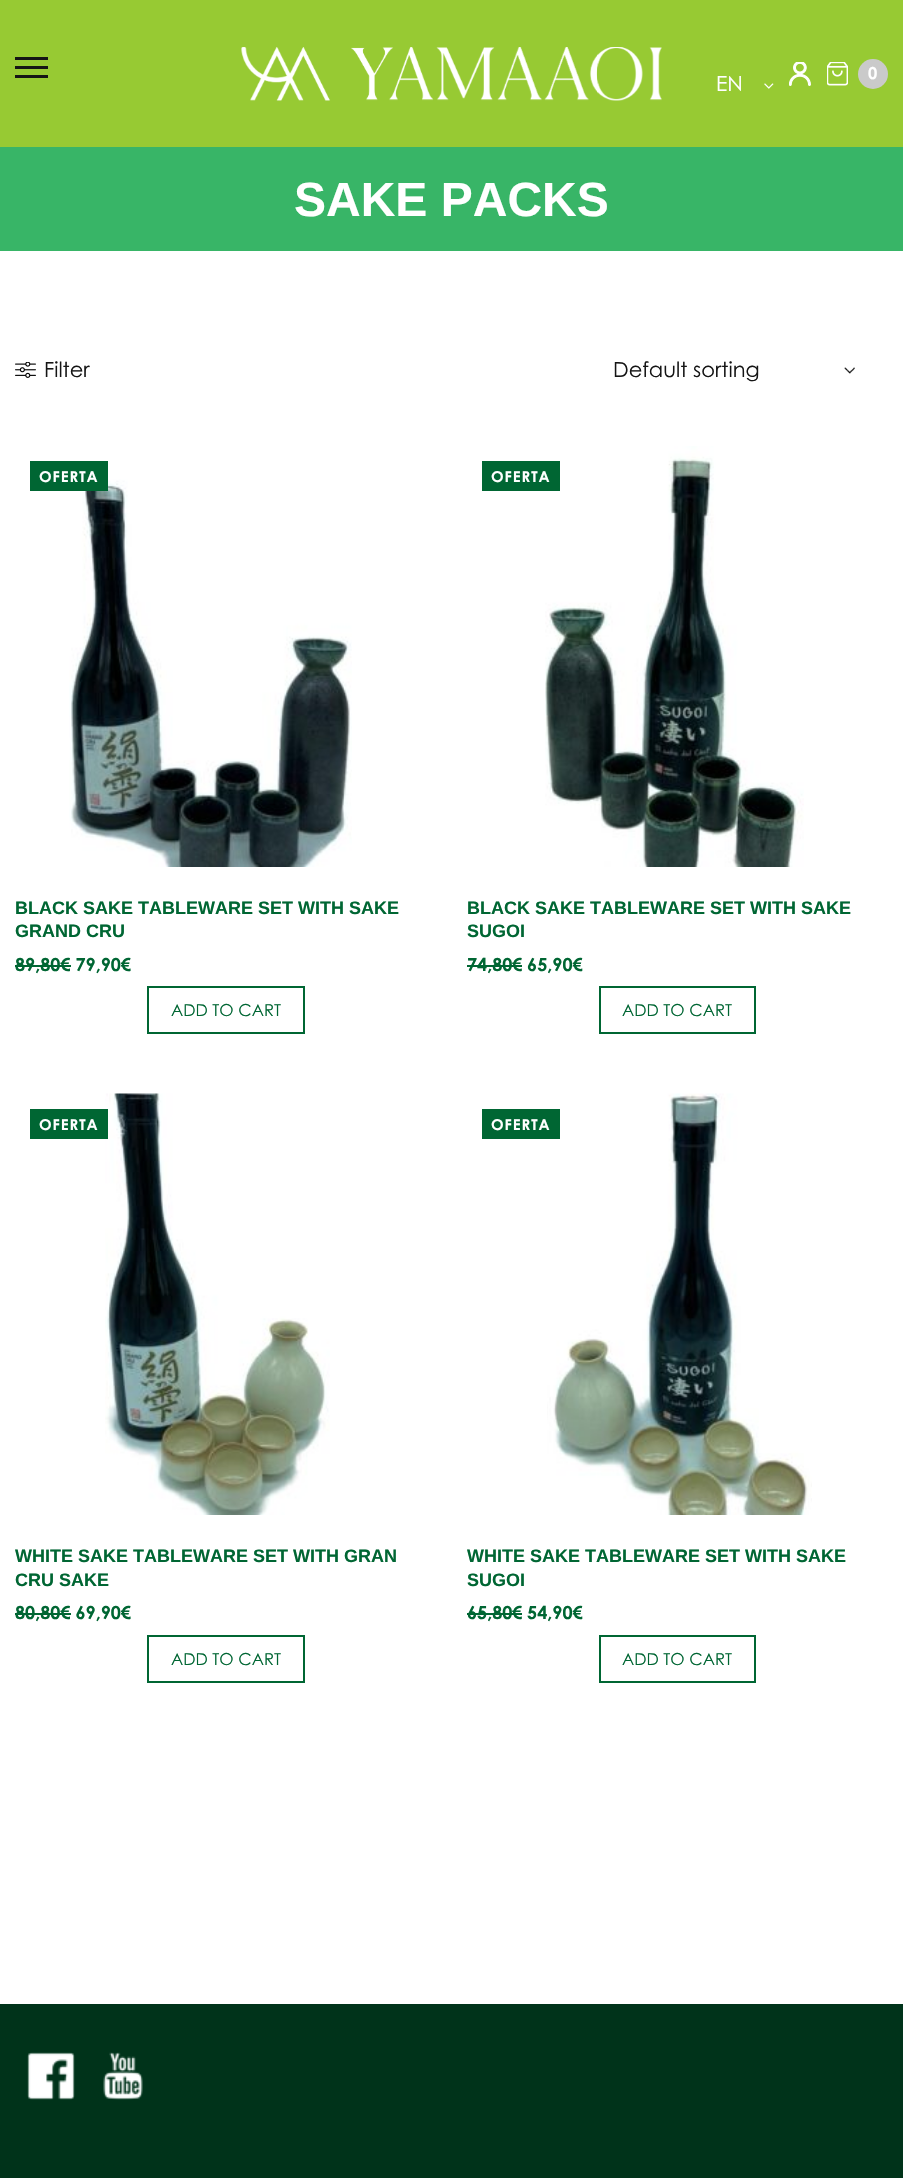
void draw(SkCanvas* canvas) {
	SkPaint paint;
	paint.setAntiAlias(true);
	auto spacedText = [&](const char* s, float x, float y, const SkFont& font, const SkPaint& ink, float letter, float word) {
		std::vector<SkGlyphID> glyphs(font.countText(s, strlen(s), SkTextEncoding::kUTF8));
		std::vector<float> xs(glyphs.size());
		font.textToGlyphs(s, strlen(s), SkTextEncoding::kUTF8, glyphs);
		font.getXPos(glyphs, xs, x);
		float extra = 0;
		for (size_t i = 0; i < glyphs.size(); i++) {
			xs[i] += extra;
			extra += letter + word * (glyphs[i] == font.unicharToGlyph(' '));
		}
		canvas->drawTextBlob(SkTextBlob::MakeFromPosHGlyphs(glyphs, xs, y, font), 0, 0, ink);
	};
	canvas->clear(0xffffffff);
	paint.setColor(0xff97ca33);
	canvas->drawRect(SkRect::MakeXYWH(0, 0, 903, 147), paint);
	paint.setColor(0xff151515);
	canvas->drawRect(SkRect::MakeXYWH(15, 57, 33, 3), paint);
	canvas->drawRect(SkRect::MakeXYWH(15, 66, 33, 3), paint);
	canvas->drawRect(SkRect::MakeXYWH(15, 75, 33, 3), paint);
	canvas->drawImageRect(SkImages::DeferredFromEncodedData(SkData::MakeFromFileName("img1.png")), SkRect::MakeXYWH(241, 47, 421, 54), SkSamplingOptions());
	canvas->drawImageRect(SkImages::DeferredFromEncodedData(SkData::MakeFromFileName("img2.png")), SkRect::MakeXYWH(789, 62, 22, 24), SkSamplingOptions());
	canvas->drawImageRect(SkImages::DeferredFromEncodedData(SkData::MakeFromFileName("img3.png")), SkRect::MakeXYWH(827, 62, 21, 24), SkSamplingOptions());
	paint.setColor(0xffcacaca);
	canvas->drawCircle(873, 74, 15, paint);
	SkFont f1(fontMgr->matchFamilyStyle("Century Gothic", SkFontStyle::Bold()), 16.5);
	f1.setSubpixel(true);
	paint.setColor(0xffffffff);
	canvas->drawString("0", 868, 79, f1, paint);
	SkFont f2(fontMgr->matchFamilyStyle("Century Gothic", SkFontStyle::Normal()), 21);
	f2.setSubpixel(true);
	canvas->drawString("EN", 716, 91, f2, paint);
	canvas->drawImageRect(SkImages::DeferredFromEncodedData(SkData::MakeFromFileName("img4.png")), SkRect::MakeXYWH(764, 83, 10, 6), SkSamplingOptions());
	paint.setColor(0xff38b567);
	canvas->drawRect(SkRect::MakeXYWH(0, 147, 903, 104), paint);
	SkFont f3(fontMgr->matchFamilyStyle("Liberation Sans", SkFontStyle::Bold()), 48);
	f3.setSubpixel(true);
	paint.setColor(0xffffffff);
	canvas->drawString("SAKE PACKS", 294, 216, f3, paint);
	canvas->drawImageRect(SkImages::DeferredFromEncodedData(SkData::MakeFromFileName("img5.png")), SkRect::MakeXYWH(15, 362, 21, 16), SkSamplingOptions());
	paint.setColor(0xff151515);
	canvas->drawString("Filter", 44, 377, f2, paint);
	canvas->drawImageRect(SkImages::DeferredFromEncodedData(SkData::MakeFromFileName("img6.png")), SkRect::MakeXYWH(844, 367, 11, 7), SkSamplingOptions());
	canvas->drawString("Default sorting", 613, 377, f2, paint);
	canvas->drawImageRect(SkImages::DeferredFromEncodedData(SkData::MakeFromFileName("img7.png")), SkRect::MakeXYWH(69, 479, 283, 388), SkSamplingOptions());
	paint.setColor(0xff006633);
	canvas->drawRect(SkRect::MakeXYWH(30, 461, 78, 30), paint);
	SkFont f4(fontMgr->matchFamilyStyle("Century Gothic", SkFontStyle::Bold()), 15);
	f4.setSubpixel(true);
	paint.setColor(0xffffffff);
	spacedText("OFERTA", 39, 482, f4, paint, 1, 0);
	SkFont f5(fontMgr->matchFamilyStyle("Liberation Sans", SkFontStyle::Bold()), 18);
	f5.setSubpixel(true);
	paint.setColor(0xff006633);
	canvas->drawString("BLACK SAKE TABLEWARE SET WITH SAKE", 15, 914, f5, paint);
	canvas->drawString("GRAND CRU", 15, 937, f5, paint);
	SkFont f6(fontMgr->matchFamilyStyle("Century Gothic", SkFontStyle::Bold()), 18);
	f6.setSubpixel(true);
	canvas->drawString("89,80€ 79,90€", 15, 971, f6, paint);
	canvas->drawRect(SkRect::MakeXYWH(15, 965, 56, 2), paint);
	paint.setStroke(true);
	paint.setStrokeWidth(2);
	canvas->drawRect(SkRect::MakeXYWH(148, 987, 156, 46), paint);
	SkFont f7(fontMgr->matchFamilyStyle("Century Gothic", SkFontStyle::Normal()), 16.5);
	f7.setSubpixel(true);
	paint.setStroke(false);
	canvas->drawString("ADD TO CART", 171, 1016, f7, paint);
	canvas->drawImageRect(SkImages::DeferredFromEncodedData(SkData::MakeFromFileName("img8.png")), SkRect::MakeXYWH(545, 446, 259, 421), SkSamplingOptions());
	canvas->drawRect(SkRect::MakeXYWH(482, 461, 78, 30), paint);
	paint.setColor(0xffffffff);
	spacedText("OFERTA", 491, 482, f4, paint, 1, 0);
	paint.setColor(0xff006633);
	canvas->drawString("BLACK SAKE TABLEWARE SET WITH SAKE", 467, 914, f5, paint);
	canvas->drawString("SUGOI", 467, 937, f5, paint);
	canvas->drawString("74,80", 467, 971, f6, paint);
	canvas->drawRect(SkRect::MakeXYWH(467, 965, 45, 2), paint);
	canvas->drawRect(SkRect::MakeXYWH(512, 965, 10, 2), paint);
	canvas->drawString("€ 65,90€", 512, 971, f6, paint);
	paint.setStroke(true);
	canvas->drawRect(SkRect::MakeXYWH(600, 987, 155, 46), paint);
	paint.setStroke(false);
	canvas->drawString("ADD TO CART", 622, 1016, f7, paint);
	canvas->drawImageRect(SkImages::DeferredFromEncodedData(SkData::MakeFromFileName("img9.png")), SkRect::MakeXYWH(105, 1093, 225, 422), SkSamplingOptions());
	canvas->drawRect(SkRect::MakeXYWH(30, 1109, 78, 30), paint);
	paint.setColor(0xffffffff);
	spacedText("OFERTA", 39, 1130, f4, paint, 1, 0);
	paint.setColor(0xff006633);
	canvas->drawString("WHITE SAKE TABLEWARE SET WITH GRAN", 15, 1562, f5, paint);
	canvas->drawString("CRU SAKE", 15, 1586, f5, paint);
	canvas->drawString("80,80€ 69,90€", 15, 1619, f6, paint);
	canvas->drawRect(SkRect::MakeXYWH(15, 1613, 56, 2), paint);
	paint.setStroke(true);
	canvas->drawRect(SkRect::MakeXYWH(148, 1636, 156, 46), paint);
	paint.setStroke(false);
	canvas->drawString("ADD TO CART", 171, 1665, f7, paint);
	canvas->drawImageRect(SkImages::DeferredFromEncodedData(SkData::MakeFromFileName("img10.png")), SkRect::MakeXYWH(547, 1093, 265, 422), SkSamplingOptions());
	canvas->drawRect(SkRect::MakeXYWH(482, 1109, 78, 30), paint);
	paint.setColor(0xffffffff);
	spacedText("OFERTA", 491, 1130, f4, paint, 1, 0);
	paint.setColor(0xff006633);
	canvas->drawString("WHITE SAKE TABLEWARE SET WITH SAKE", 467, 1562, f5, paint);
	canvas->drawString("SUGOI", 467, 1586, f5, paint);
	canvas->drawString("65,80", 467, 1619, f6, paint);
	canvas->drawRect(SkRect::MakeXYWH(467, 1613, 45, 2), paint);
	canvas->drawRect(SkRect::MakeXYWH(512, 1613, 10, 2), paint);
	canvas->drawString("€ 54,90€", 512, 1619, f6, paint);
	paint.setStroke(true);
	canvas->drawRect(SkRect::MakeXYWH(600, 1636, 155, 46), paint);
	paint.setStroke(false);
	canvas->drawString("ADD TO CART", 622, 1665, f7, paint);
	paint.setColor(0xff00331a);
	canvas->drawRect(SkRect::MakeXYWH(0, 2004, 903, 174), paint);
	canvas->drawImageRect(SkImages::DeferredFromEncodedData(SkData::MakeFromFileName("img11.png")), SkRect::MakeXYWH(27, 2052, 48, 48), SkSamplingOptions());
	canvas->drawImageRect(SkImages::DeferredFromEncodedData(SkData::MakeFromFileName("img12.png")), SkRect::MakeXYWH(103, 2052, 40, 48), SkSamplingOptions());
}
